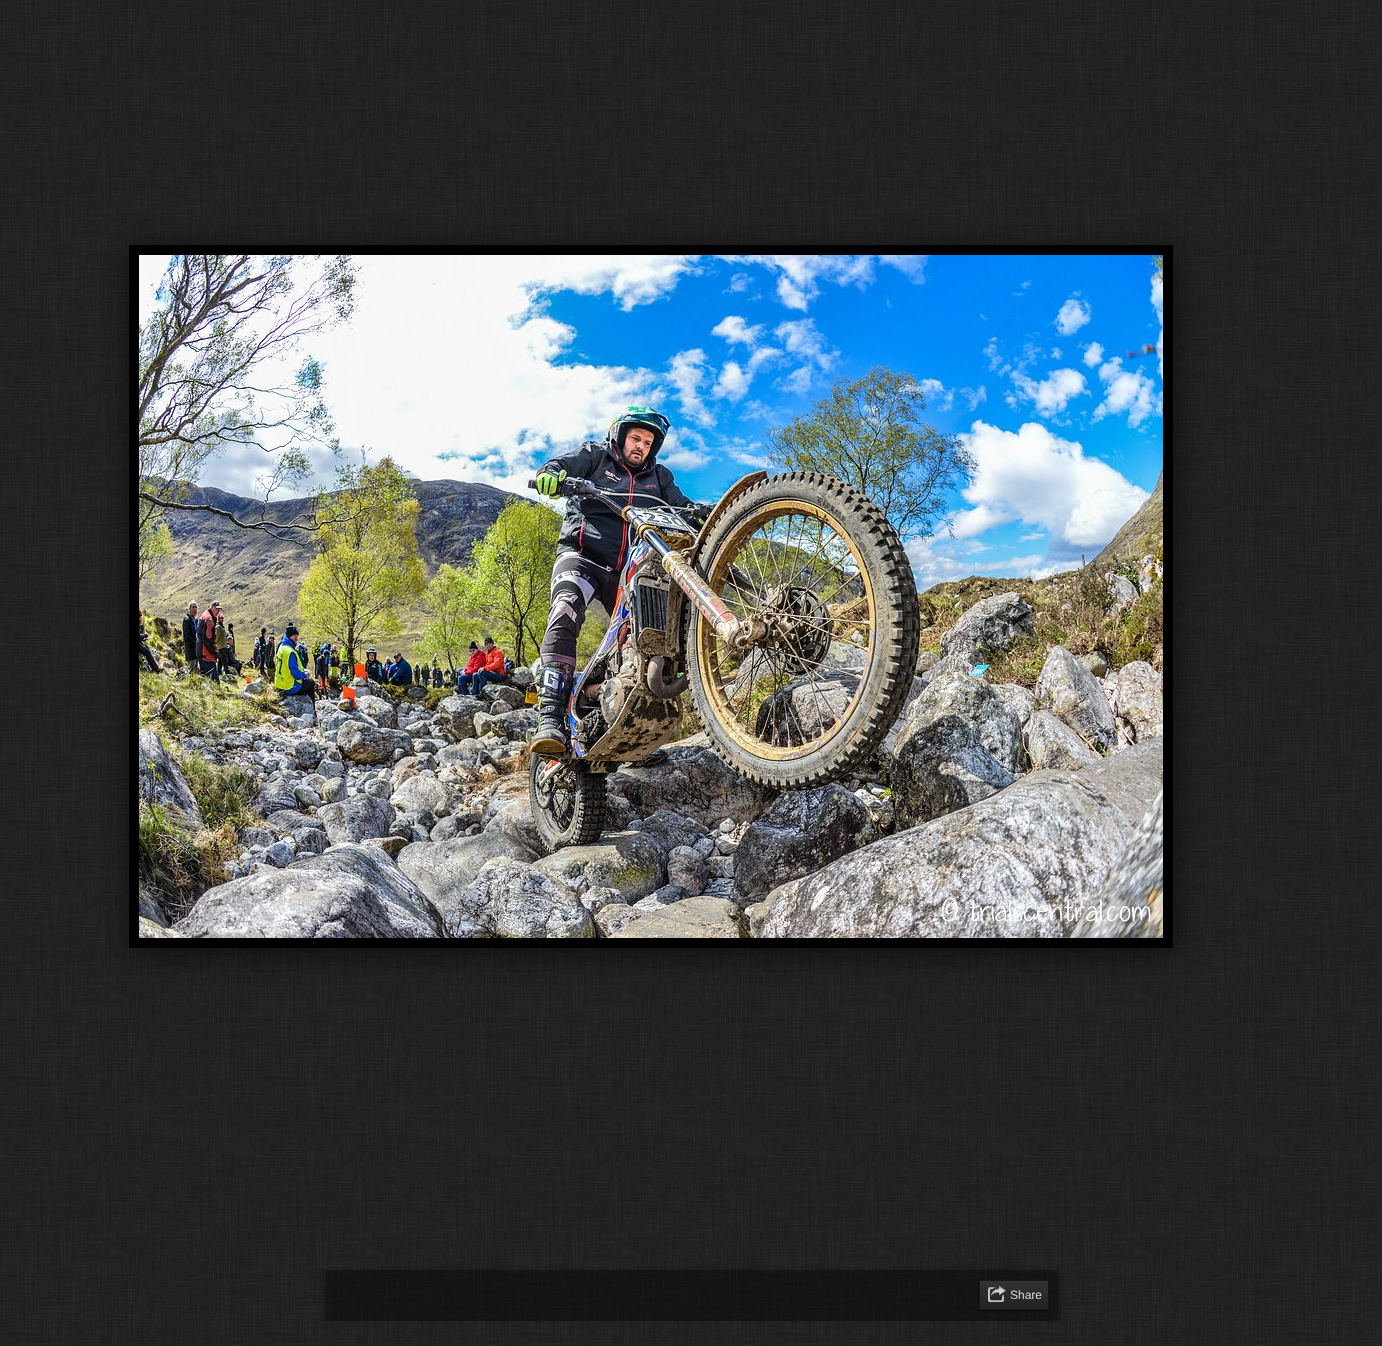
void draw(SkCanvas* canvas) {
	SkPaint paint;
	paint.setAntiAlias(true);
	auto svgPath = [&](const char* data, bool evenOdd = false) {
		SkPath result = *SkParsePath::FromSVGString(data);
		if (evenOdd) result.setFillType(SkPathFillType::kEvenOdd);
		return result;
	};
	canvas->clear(0xff222222);
	canvas->drawImageRect(SkImages::DeferredFromEncodedData(SkData::MakeFromFileName("img1.png")), SkRect::MakeXYWH(0, 1321, 1382, 25), SkSamplingOptions());
	canvas->drawImageRect(SkImages::DeferredFromEncodedData(SkData::MakeFromFileName("img2.png")), SkRect::MakeXYWH(0, 0, 1382, 1321), SkSamplingOptions());
	paint.setColor(0x99000000);
	paint.setMaskFilter(SkMaskFilter::MakeBlur(kNormal_SkBlurStyle, 16));
	canvas->drawRect(SkRect::MakeXYWH(132, 251, 1044, 703), paint);
	paint.setMaskFilter(nullptr);
	paint.setColor(0xff000000);
	canvas->drawRect(SkRect::MakeXYWH(129, 245, 1044, 703), paint);
	canvas->drawImageRect(SkImages::DeferredFromEncodedData(SkData::MakeFromFileName("img3.png")), SkRect::MakeXYWH(139, 255, 1024, 683), SkSamplingOptions());
	canvas->save();
	canvas->clipRect(SkRect::MakeXYWH(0, 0, 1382, 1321));
	canvas->clipPath(svgPath("M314 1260H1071V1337H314ZM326 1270H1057V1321H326Z", true), true);
	paint.setColor(0x99000000);
	paint.setMaskFilter(SkMaskFilter::MakeBlur(kNormal_SkBlurStyle, 4));
	canvas->drawRect(SkRect::MakeXYWH(327, 1273, 731, 51), paint);
	paint.setMaskFilter(nullptr);
	canvas->restore();
	paint.setColor(0x66000000);
	canvas->drawRect(SkRect::MakeXYWH(326, 1270, 731, 51), paint);
	paint.setColor(0x99000000);
	paint.setMaskFilter(SkMaskFilter::MakeBlur(kNormal_SkBlurStyle, 1));
	canvas->drawRect(SkRect::MakeXYWH(979, 1281, 70, 30), paint);
	paint.setMaskFilter(nullptr);
	{
		const SkColor colors[] = {0xff333333, 0xff222222};
		const float stops[] = {0, 1};
		const SkPoint ends[] = {{1014, 1281}, {1014, 1309}};
		paint.setShader(SkGradientShader::MakeLinear(ends, colors, stops, 2, SkTileMode::kClamp));
		paint.setAlpha(255);
	}
	canvas->drawRect(SkRect::MakeXYWH(980, 1281, 68, 28), paint);
	paint.setStroke(true);
	paint.setStrokeWidth(1);
	paint.setShader(nullptr);
	paint.setColor(0xff181818);
	canvas->drawRect(SkRect::MakeXYWH(979.5, 1280.5, 69, 29), paint);
	canvas->drawImageRect(SkImages::DeferredFromEncodedData(SkData::MakeFromFileName("img4.png")), SkRect::MakeXYWH(988, 1285, 18, 17), SkSamplingOptions());
	SkFont f1(fontMgr->matchFamilyStyle("Liberation Sans", SkFontStyle::Normal()), 12);
	f1.setSubpixel(true);
	paint.setStroke(false);
	paint.setColor(0xffcccccc);
	canvas->drawString("Share", 1010, 1299, f1, paint);
}
